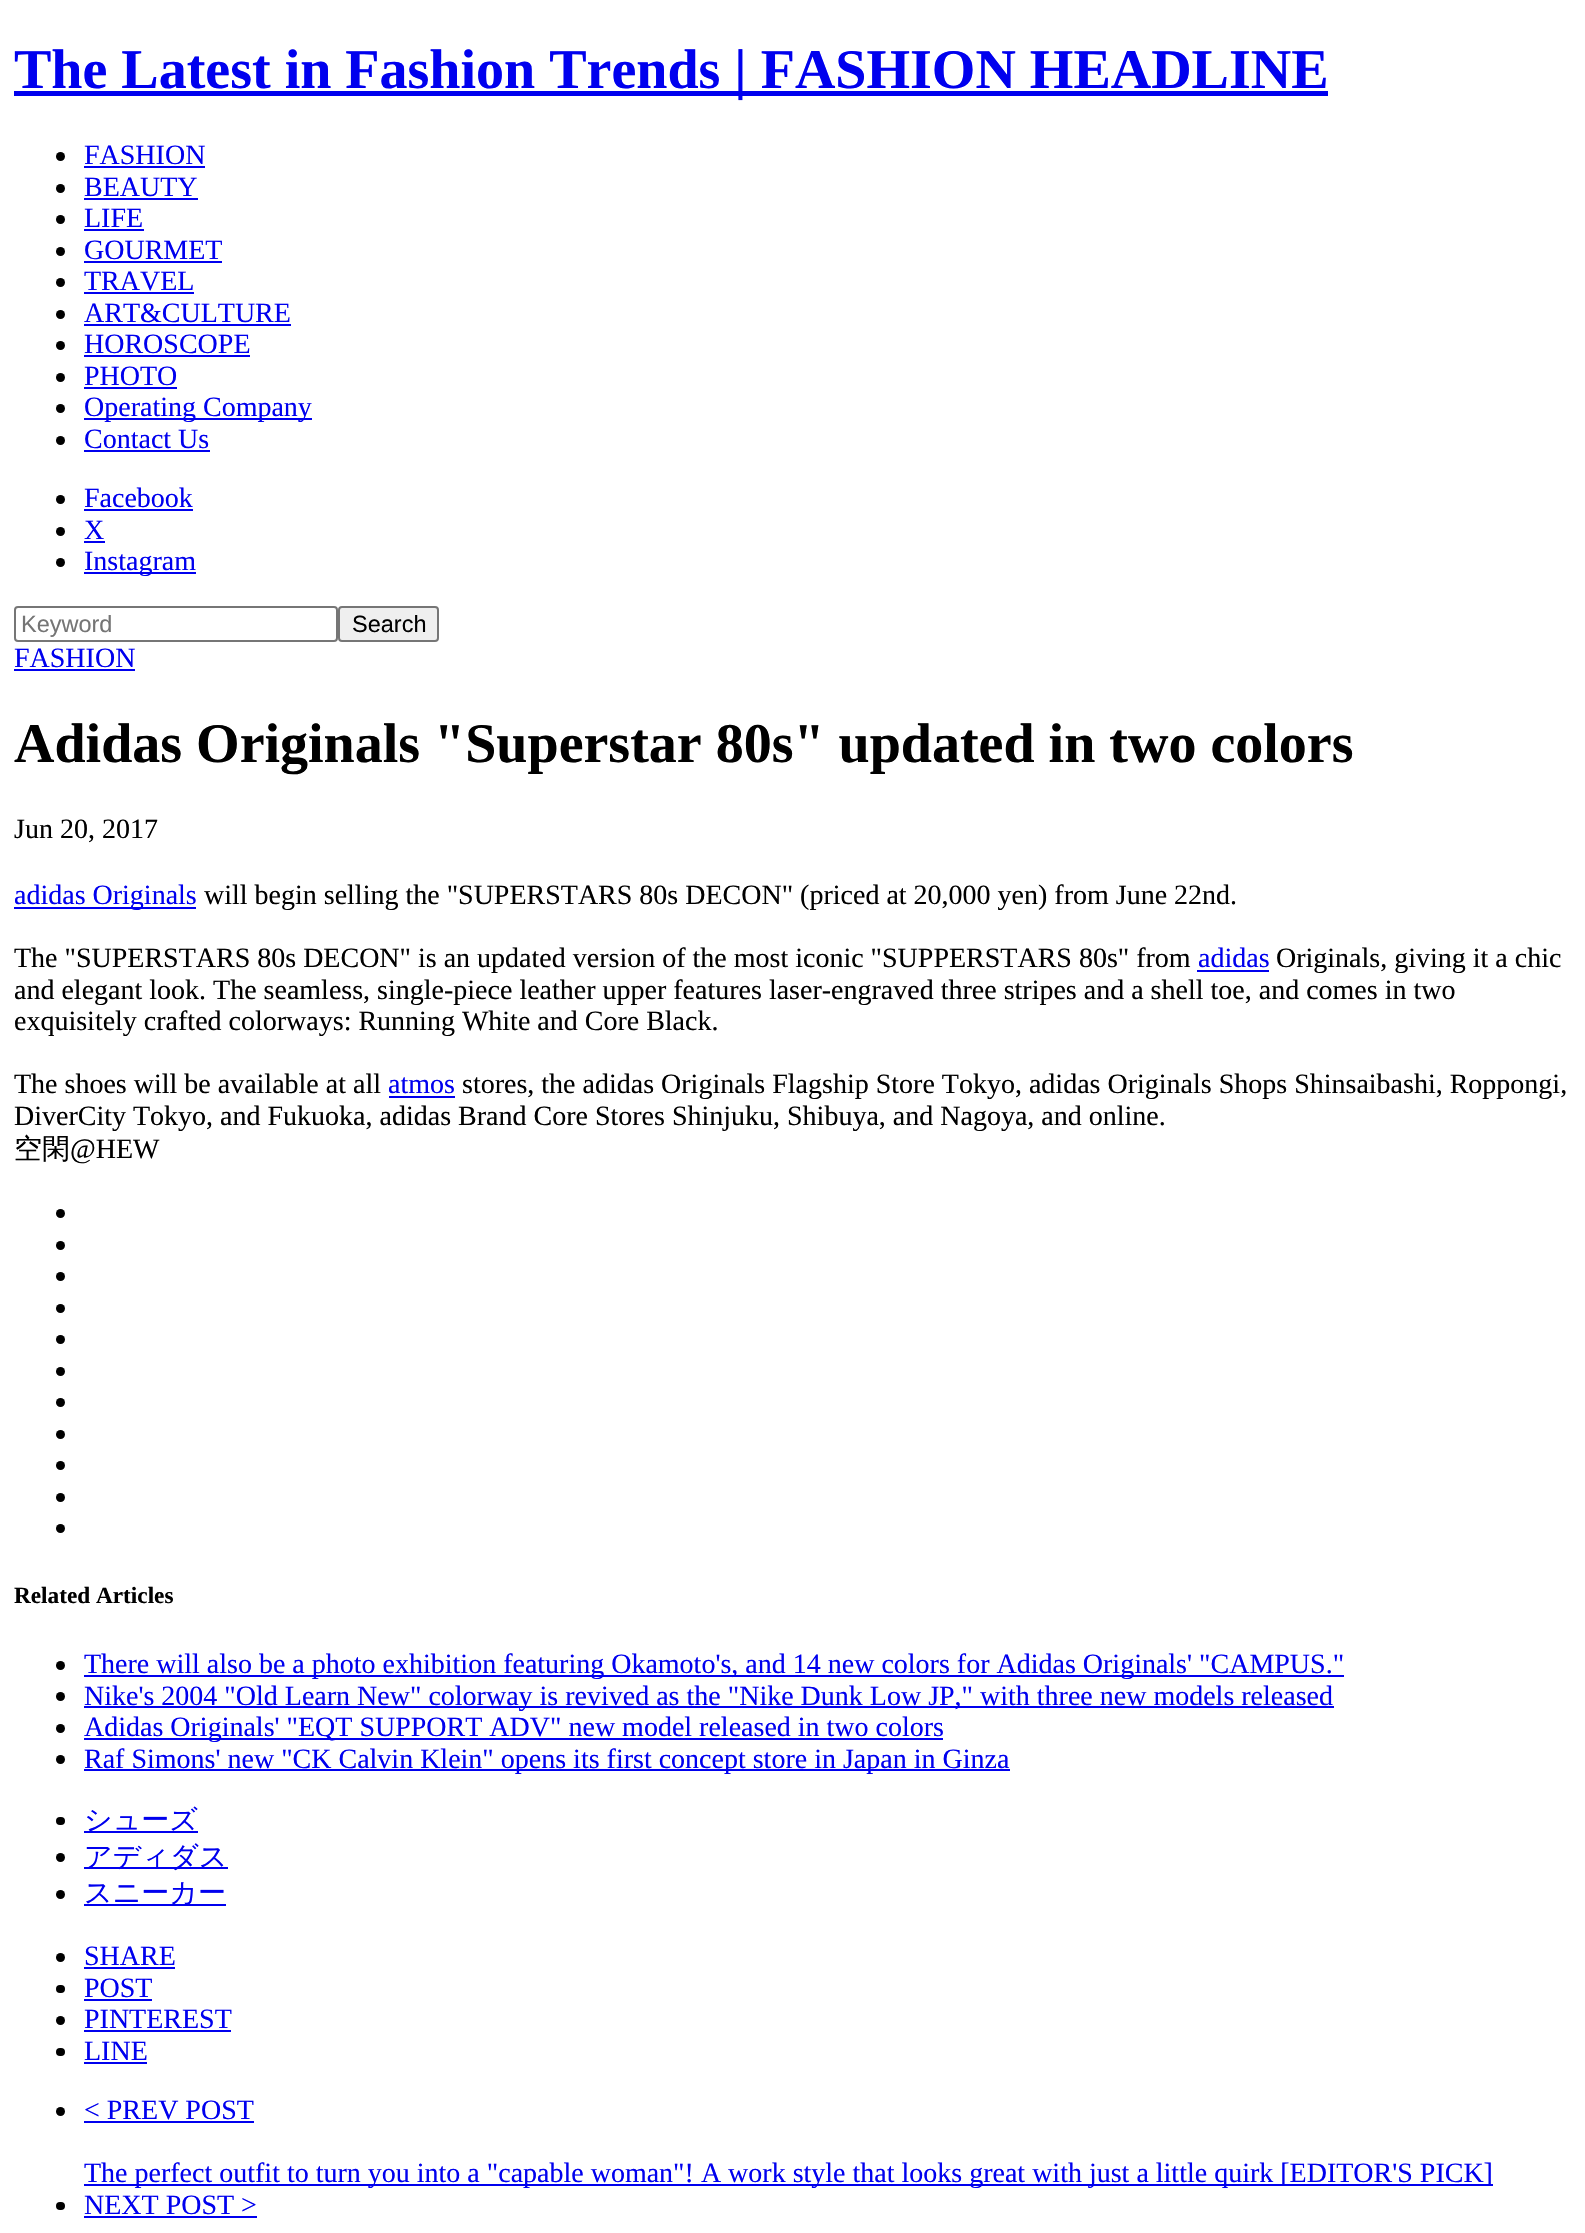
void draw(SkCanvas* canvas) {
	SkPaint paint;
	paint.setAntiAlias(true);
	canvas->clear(0xffffffff);
	paint.setColor(0xff0000ee);
	canvas->drawRect(SkRect::MakeXYWH(14, 91, 1314, 5), paint);
	SkFont f1(fontMgr->matchFamilyStyle("Liberation Serif", SkFontStyle::Bold()), 56);
	f1.setSubpixel(true);
	canvas->drawString("The Latest in Fashion Trends | FASHION HEADLINE", 14, 88, f1, paint);
	paint.setColor(0xff000000);
	canvas->drawCircle(60.5, 156.5, 4.5, paint);
	SkFont f2(fontMgr->matchFamilyStyle("Liberation Serif", SkFontStyle::Normal()), 28);
	f2.setSubpixel(true);
	paint.setColor(0xff0000ee);
	canvas->drawString("FASHION", 84, 164, f2, paint);
	canvas->drawRect(SkRect::MakeXYWH(84, 166, 121, 2), paint);
	paint.setColor(0xff000000);
	canvas->drawCircle(60.5, 188.5, 4.5, paint);
	paint.setColor(0xff0000ee);
	canvas->drawString("BEAUTY", 84, 196, f2, paint);
	canvas->drawRect(SkRect::MakeXYWH(84, 198, 114, 2), paint);
	paint.setColor(0xff000000);
	canvas->drawCircle(60.5, 219.5, 4.5, paint);
	paint.setColor(0xff0000ee);
	canvas->drawString("LIFE", 84, 227, f2, paint);
	canvas->drawRect(SkRect::MakeXYWH(84, 229, 60, 2), paint);
	paint.setColor(0xff000000);
	canvas->drawCircle(60.5, 251.5, 4.5, paint);
	paint.setColor(0xff0000ee);
	canvas->drawString("GOURMET", 84, 259, f2, paint);
	canvas->drawRect(SkRect::MakeXYWH(84, 261, 138, 2), paint);
	paint.setColor(0xff000000);
	canvas->drawCircle(60.5, 282.5, 4.5, paint);
	paint.setColor(0xff0000ee);
	canvas->drawString("TRAVEL", 84, 290, f2, paint);
	canvas->drawRect(SkRect::MakeXYWH(84, 292, 110, 2), paint);
	paint.setColor(0xff000000);
	canvas->drawCircle(60.5, 314.5, 4.5, paint);
	paint.setColor(0xff0000ee);
	canvas->drawString("ART&CULTURE", 84, 322, f2, paint);
	canvas->drawRect(SkRect::MakeXYWH(84, 324, 207, 2), paint);
	paint.setColor(0xff000000);
	canvas->drawCircle(60.5, 345.5, 4.5, paint);
	paint.setColor(0xff0000ee);
	canvas->drawString("HOROSCOPE", 84, 353, f2, paint);
	canvas->drawRect(SkRect::MakeXYWH(84, 355, 166, 2), paint);
	paint.setColor(0xff000000);
	canvas->drawCircle(60.5, 377.5, 4.5, paint);
	paint.setColor(0xff0000ee);
	canvas->drawString("PHOTO", 84, 385, f2, paint);
	canvas->drawRect(SkRect::MakeXYWH(84, 387, 93, 2), paint);
	paint.setColor(0xff000000);
	canvas->drawCircle(60.5, 408.5, 4.5, paint);
	paint.setColor(0xff0000ee);
	canvas->drawRect(SkRect::MakeXYWH(84, 418, 228, 2), paint);
	canvas->drawString("Operating Company", 84, 416, f2, paint);
	paint.setColor(0xff000000);
	canvas->drawCircle(60.5, 440.5, 4.5, paint);
	paint.setColor(0xff0000ee);
	canvas->drawString("Contact Us", 84, 448, f2, paint);
	canvas->drawRect(SkRect::MakeXYWH(84, 450, 126, 2), paint);
	paint.setColor(0xff000000);
	canvas->drawCircle(60.5, 499.5, 4.5, paint);
	paint.setColor(0xff0000ee);
	canvas->drawString("Facebook", 84, 507, f2, paint);
	canvas->drawRect(SkRect::MakeXYWH(84, 509, 109, 2), paint);
	paint.setColor(0xff000000);
	canvas->drawCircle(60.5, 531.5, 4.5, paint);
	paint.setColor(0xff0000ee);
	canvas->drawString("X", 84, 539, f2, paint);
	canvas->drawRect(SkRect::MakeXYWH(84, 541, 21, 2), paint);
	paint.setColor(0xff000000);
	canvas->drawCircle(60.5, 562.5, 4.5, paint);
	paint.setColor(0xff0000ee);
	canvas->drawRect(SkRect::MakeXYWH(84, 572, 112, 2), paint);
	canvas->drawString("Instagram", 84, 570, f2, paint);
	paint.setStroke(true);
	paint.setStrokeWidth(2);
	paint.setColor(0xff767676);
	canvas->drawRoundRect(SkRect::MakeXYWH(15, 607, 322, 34), 3, 3, paint);
	SkFont f3(fontMgr->matchFamilyStyle("Liberation Sans", SkFontStyle::Normal()), 23.5);
	f3.setSubpixel(true);
	paint.setStroke(false);
	paint.setColor(0xff757575);
	canvas->drawString("Keyword", 21, 632, f3, paint);
	paint.setColor(0xffefefef);
	canvas->drawRoundRect(SkRect::MakeXYWH(339, 607, 99, 34), 3, 3, paint);
	paint.setStroke(true);
	paint.setColor(0xff767676);
	canvas->drawRoundRect(SkRect::MakeXYWH(339, 607, 99, 34), 3, 3, paint);
	paint.setStroke(false);
	paint.setColor(0xff000000);
	canvas->drawString("Search", 352, 632, f3, paint);
	paint.setColor(0xff0000ee);
	canvas->drawString("FASHION", 14, 667, f2, paint);
	canvas->drawRect(SkRect::MakeXYWH(14, 669, 121, 2), paint);
	paint.setColor(0xff000000);
	canvas->drawString("Adidas Originals \"Superstar 80s\" updated in two colors", 14, 762, f1, paint);
	canvas->drawString("Jun 20, 2017", 14, 838, f2, paint);
	paint.setColor(0xff0000ee);
	canvas->drawRect(SkRect::MakeXYWH(14, 907, 182, 2), paint);
	canvas->drawString("adidas Originals", 14, 904, f2, paint);
	paint.setColor(0xff000000);
	canvas->drawString("will begin selling the \"SUPERSTARS 80s DECON\" (priced at 20,000 yen) from June 22nd.", 204, 904, f2, paint);
	canvas->drawString("The \"SUPERSTARS 80s DECON\" is an updated version of the most iconic \"SUPPERSTARS 80s\" from", 14, 967, f2, paint);
	paint.setColor(0xff0000ee);
	canvas->drawString("adidas", 1198, 967, f2, paint);
	canvas->drawRect(SkRect::MakeXYWH(1197, 970, 72, 2), paint);
	paint.setColor(0xff000000);
	canvas->drawString("Originals, giving it a chic", 1276, 967, f2, paint);
	canvas->drawString("and elegant look. The seamless, single-piece leather upper features laser-engraved three stripes and a shell toe, and comes in two", 14, 999, f2, paint);
	canvas->drawString("exquisitely crafted colorways: Running White and Core Black.", 14, 1030, f2, paint);
	canvas->drawString("The shoes will be available at all", 14, 1093, f2, paint);
	paint.setColor(0xff0000ee);
	canvas->drawString("atmos", 388, 1093, f2, paint);
	canvas->drawRect(SkRect::MakeXYWH(389, 1096, 66, 2), paint);
	paint.setColor(0xff000000);
	canvas->drawString("stores, the adidas Originals Flagship Store Tokyo, adidas Originals Shops Shinsaibashi, Roppongi,", 462, 1093, f2, paint);
	canvas->drawString("DiverCity Tokyo, and Fukuoka, adidas Brand Core Stores Shinjuku, Shibuya, and Nagoya, and online.", 14, 1125, f2, paint);
	SkFont f4(fontMgr->matchFamilyStyle("WenQuanYi Zen Hei", SkFontStyle(500, SkFontStyle::kNormal_Width, SkFontStyle::kUpright_Slant)), 28);
	f4.setSubpixel(true);
	canvas->drawString("空閑", 14, 1158, f4, paint);
	canvas->drawString("@HEW", 70, 1158, f2, paint);
	canvas->drawCircle(60.5, 1213.5, 4.5, paint);
	canvas->drawCircle(60.5, 1245.5, 4.5, paint);
	canvas->drawCircle(60.5, 1276.5, 4.5, paint);
	canvas->drawCircle(60.5, 1308.5, 4.5, paint);
	canvas->drawCircle(60.5, 1339.5, 4.5, paint);
	canvas->drawCircle(60.5, 1371.5, 4.5, paint);
	canvas->drawCircle(60.5, 1402.5, 4.5, paint);
	canvas->drawCircle(60.5, 1434.5, 4.5, paint);
	canvas->drawCircle(60.5, 1465.5, 4.5, paint);
	canvas->drawCircle(60.5, 1497.5, 4.5, paint);
	canvas->drawCircle(60.5, 1528.5, 4.5, paint);
	SkFont f5(fontMgr->matchFamilyStyle("Liberation Serif", SkFontStyle::Bold()), 23.25);
	f5.setSubpixel(true);
	canvas->drawString("Related Articles", 14, 1603, f5, paint);
	canvas->drawCircle(60.5, 1665.5, 4.5, paint);
	paint.setColor(0xff0000ee);
	canvas->drawRect(SkRect::MakeXYWH(84, 1675, 1260, 2), paint);
	canvas->drawString("There will also be a photo exhibition featuring Okamoto's, and 14 new colors for Adidas Originals' \"CAMPUS.\"", 84, 1673, f2, paint);
	paint.setColor(0xff000000);
	canvas->drawCircle(60.5, 1696.5, 4.5, paint);
	paint.setColor(0xff0000ee);
	canvas->drawRect(SkRect::MakeXYWH(84, 1706, 1250, 2), paint);
	canvas->drawString("Nike's 2004 \"Old Learn New\" colorway is revived as the \"Nike Dunk Low JP,\" with three new models released", 84, 1705, f2, paint);
	paint.setColor(0xff000000);
	canvas->drawCircle(60.5, 1728.5, 4.5, paint);
	paint.setColor(0xff0000ee);
	canvas->drawRect(SkRect::MakeXYWH(84, 1738, 859, 2), paint);
	canvas->drawString("Adidas Originals' \"EQT SUPPORT ADV\" new model released in two colors", 84, 1736, f2, paint);
	paint.setColor(0xff000000);
	canvas->drawCircle(60.5, 1759.5, 4.5, paint);
	paint.setColor(0xff0000ee);
	canvas->drawRect(SkRect::MakeXYWH(84, 1769, 926, 2), paint);
	canvas->drawString("Raf Simons' new \"CK Calvin Klein\" opens its first concept store in Japan in Ginza", 84, 1768, f2, paint);
	paint.setColor(0xff000000);
	canvas->drawRoundRect(SkRect::MakeXYWH(56, 1817, 9, 8), 4, 4, paint);
	paint.setColor(0xff0000ee);
	canvas->drawRect(SkRect::MakeXYWH(84, 1831, 114, 2), paint);
	canvas->drawString("シューズ", 84, 1829, f4, paint);
	paint.setColor(0xff000000);
	canvas->drawCircle(60.5, 1857.5, 4.5, paint);
	paint.setColor(0xff0000ee);
	canvas->drawRect(SkRect::MakeXYWH(84, 1867, 144, 2), paint);
	canvas->drawString("アディダス", 84, 1866, f4, paint);
	paint.setColor(0xff000000);
	canvas->drawCircle(60.5, 1894.5, 4.5, paint);
	paint.setColor(0xff0000ee);
	canvas->drawRect(SkRect::MakeXYWH(84, 1904, 142, 2), paint);
	canvas->drawString("スニーカー", 84, 1902, f4, paint);
	paint.setColor(0xff000000);
	canvas->drawCircle(60.5, 1957.5, 4.5, paint);
	paint.setColor(0xff0000ee);
	canvas->drawString("SHARE", 84, 1965, f2, paint);
	canvas->drawRect(SkRect::MakeXYWH(84, 1967, 91, 2), paint);
	paint.setColor(0xff000000);
	canvas->drawRoundRect(SkRect::MakeXYWH(56, 1985, 9, 8), 4, 4, paint);
	paint.setColor(0xff0000ee);
	canvas->drawString("POST", 84, 1997, f2, paint);
	canvas->drawRect(SkRect::MakeXYWH(84, 1999, 68, 2), paint);
	paint.setColor(0xff000000);
	canvas->drawCircle(60.5, 2020.5, 4.5, paint);
	paint.setColor(0xff0000ee);
	canvas->drawString("PINTEREST", 84, 2028, f2, paint);
	canvas->drawRect(SkRect::MakeXYWH(84, 2030, 147, 2), paint);
	paint.setColor(0xff000000);
	canvas->drawRoundRect(SkRect::MakeXYWH(56, 2048, 9, 8), 4, 4, paint);
	paint.setColor(0xff0000ee);
	canvas->drawString("LINE", 84, 2060, f2, paint);
	canvas->drawRect(SkRect::MakeXYWH(84, 2062, 63, 2), paint);
	paint.setColor(0xff000000);
	canvas->drawCircle(60.5, 2111.5, 4.5, paint);
	paint.setColor(0xff0000ee);
	canvas->drawString("< PREV POST", 84, 2119, f2, paint);
	canvas->drawRect(SkRect::MakeXYWH(84, 2121, 170, 2), paint);
	canvas->drawRect(SkRect::MakeXYWH(84, 2184, 1409, 2), paint);
	canvas->drawString("The perfect outfit to turn you into a \"capable woman\"! A work style that looks great with just a little quirk [EDITOR'S PICK]", 84, 2182, f2, paint);
	paint.setColor(0xff000000);
	canvas->drawRoundRect(SkRect::MakeXYWH(56, 2202, 9, 8), 4, 4, paint);
	paint.setColor(0xff0000ee);
	canvas->drawString("NEXT POST >", 84, 2214, f2, paint);
	canvas->drawRect(SkRect::MakeXYWH(84, 2216, 173, 2), paint);
}
